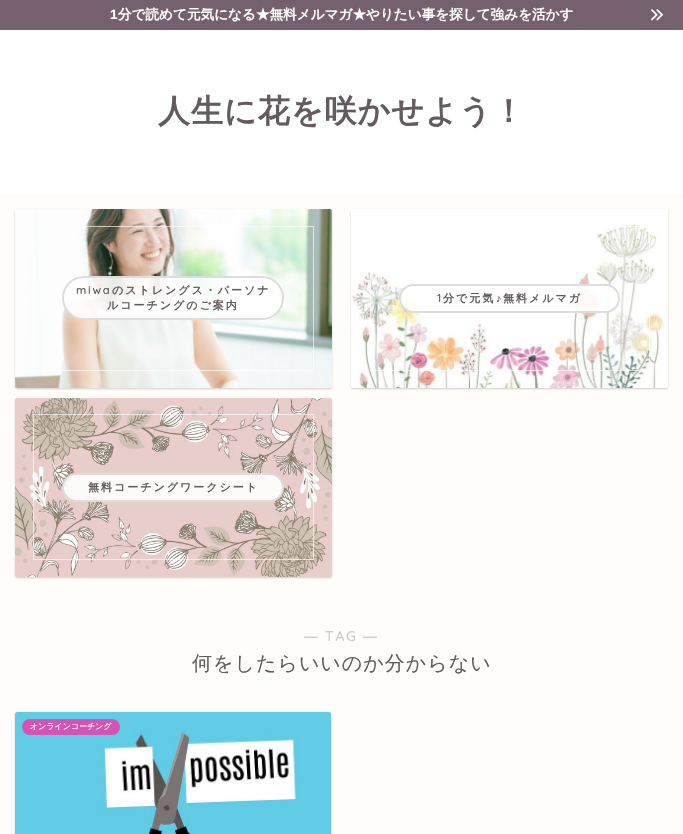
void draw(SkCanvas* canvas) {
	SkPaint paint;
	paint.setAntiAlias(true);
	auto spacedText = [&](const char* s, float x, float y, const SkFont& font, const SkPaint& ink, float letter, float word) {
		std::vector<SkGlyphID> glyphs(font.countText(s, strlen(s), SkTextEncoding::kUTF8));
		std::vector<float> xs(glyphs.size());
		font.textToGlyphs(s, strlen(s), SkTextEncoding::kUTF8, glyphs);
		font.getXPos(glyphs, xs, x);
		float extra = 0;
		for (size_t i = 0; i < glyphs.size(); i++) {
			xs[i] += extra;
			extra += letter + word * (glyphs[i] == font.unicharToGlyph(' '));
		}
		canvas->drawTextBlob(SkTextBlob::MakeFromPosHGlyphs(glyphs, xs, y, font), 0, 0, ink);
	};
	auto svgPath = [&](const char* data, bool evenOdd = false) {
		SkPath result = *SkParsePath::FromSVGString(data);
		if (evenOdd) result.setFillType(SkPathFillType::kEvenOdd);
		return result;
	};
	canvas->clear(0xfffffdf9);
	paint.setColor(0xff75606d);
	canvas->drawRect(SkRect::MakeXYWH(0, 0, 683, 30), paint);
	SkFont f1(fontMgr->matchFamilyStyle("Liberation Sans", SkFontStyle::Bold()), 13.6);
	f1.setSubpixel(true);
	paint.setColor(0xfffffffe);
	canvas->drawString("1", 110, 19, f1, paint);
	SkFont f2(fontMgr->matchFamilyStyle("WenQuanYi Zen Hei", SkFontStyle::Bold()), 13.6);
	f2.setSubpixel(true);
	canvas->drawString("分で読めて元気になる★無料メルマガ★やりたい事を探して強みを活かす", 118, 19, f2, paint);
	canvas->drawImageRect(SkImages::DeferredFromEncodedData(SkData::MakeFromFileName("img1.png")), SkRect::MakeXYWH(651, 9, 12, 12), SkSamplingOptions());
	paint.setColor(0xffffffff);
	canvas->drawRect(SkRect::MakeXYWH(0, 30, 683, 164), paint);
	SkFont f3(fontMgr->matchFamilyStyle("WenQuanYi Zen Hei", SkFontStyle::Bold()), 32);
	f3.setSubpixel(true);
	paint.setColor(0xff635b5f);
	spacedText("人生に花を咲かせよう！", 158, 122, f3, paint, 1, 0);
	canvas->save();
	canvas->clipPath(svgPath("M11 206H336V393H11ZM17 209H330C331 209 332 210 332 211V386C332 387 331 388 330 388H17C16 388 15 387 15 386V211C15 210 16 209 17 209Z", true), true);
	paint.setColor(0x2e000000);
	paint.setMaskFilter(SkMaskFilter::MakeBlur(kNormal_SkBlurStyle, 1));
	canvas->drawRoundRect(SkRect::MakeXYWH(15, 210, 317, 179), 2, 2, paint);
	paint.setMaskFilter(nullptr);
	canvas->restore();
	canvas->drawImageRect(SkImages::DeferredFromEncodedData(SkData::MakeFromFileName("img2.png")), SkRect::MakeXYWH(15, 209, 317, 179), SkSamplingOptions());
	paint.setStroke(true);
	paint.setStrokeWidth(1);
	paint.setColor(0xa6ffffff);
	canvas->drawRect(SkRect::MakeXYWH(33.5, 226.5, 280, 144), paint);
	paint.setStroke(false);
	paint.setColor(0xe6ffffff);
	canvas->drawRoundRect(SkRect::MakeXYWH(63, 277, 220, 42), 21, 21, paint);
	paint.setStroke(true);
	paint.setStrokeWidth(2);
	paint.setColor(0xffdddddd);
	canvas->drawRoundRect(SkRect::MakeXYWH(63, 277, 220, 42), 21, 21, paint);
	SkFont f4(fontMgr->matchFamilyStyle("Quicksand", SkFontStyle::Bold()), 11);
	f4.setSubpixel(true);
	paint.setStroke(false);
	paint.setColor(0xff635b5f);
	spacedText("miwa", 76, 294, f4, paint, 2, 0);
	SkFont f5(fontMgr->matchFamilyStyle("WenQuanYi Zen Hei", SkFontStyle::Bold()), 11);
	f5.setSubpixel(true);
	spacedText("のストレングス・パーソナ", 112, 294, f5, paint, 2, 0);
	spacedText("ルコーチングのご案内", 107, 309, f5, paint, 2, 0);
	paint.setColor(0x2e000000);
	paint.setMaskFilter(SkMaskFilter::MakeBlur(kNormal_SkBlurStyle, 1));
	canvas->drawRoundRect(SkRect::MakeXYWH(351, 210, 317, 179), 2, 2, paint);
	paint.setMaskFilter(nullptr);
	paint.setColor(0xffffffff);
	canvas->drawRoundRect(SkRect::MakeXYWH(351, 209, 317, 179), 2, 2, paint);
	canvas->drawImageRect(SkImages::DeferredFromEncodedData(SkData::MakeFromFileName("img3.png")), SkRect::MakeXYWH(351, 224, 317, 164), SkSamplingOptions());
	paint.setStroke(true);
	paint.setStrokeWidth(1);
	paint.setColor(0xa6ffffff);
	canvas->drawRect(SkRect::MakeXYWH(370.5, 226.5, 279, 144), paint);
	paint.setStroke(false);
	paint.setColor(0xe6ffffff);
	canvas->drawRoundRect(SkRect::MakeXYWH(400, 285, 219, 27), 13.5, 13.5, paint);
	paint.setStroke(true);
	paint.setStrokeWidth(2);
	paint.setColor(0xffdddddd);
	canvas->drawRoundRect(SkRect::MakeXYWH(400, 285, 219, 27), 13.5, 13.5, paint);
	paint.setStroke(false);
	paint.setColor(0xff635b5f);
	spacedText("1", 437, 302, f4, paint, 2, 0);
	spacedText("分で元気", 443, 302, f5, paint, 2, 0);
	SkFont f6(fontMgr->matchFamilyStyle("Liberation Sans", SkFontStyle::Bold()), 11);
	f6.setSubpixel(true);
	spacedText("♪", 496, 302, f6, paint, 2, 0);
	spacedText("無料メルマガ", 503, 302, f5, paint, 2, 0);
	canvas->save();
	canvas->clipPath(svgPath("M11 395H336V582H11ZM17 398H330C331 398 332 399 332 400V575C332 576 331 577 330 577H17C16 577 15 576 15 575V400C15 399 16 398 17 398Z", true), true);
	paint.setColor(0x2e000000);
	paint.setMaskFilter(SkMaskFilter::MakeBlur(kNormal_SkBlurStyle, 1));
	canvas->drawRoundRect(SkRect::MakeXYWH(15, 399, 317, 179), 2, 2, paint);
	paint.setMaskFilter(nullptr);
	canvas->restore();
	canvas->drawImageRect(SkImages::DeferredFromEncodedData(SkData::MakeFromFileName("img4.png")), SkRect::MakeXYWH(15, 398, 317, 179), SkSamplingOptions());
	paint.setStroke(true);
	paint.setStrokeWidth(1);
	paint.setColor(0xa6ffffff);
	canvas->drawRect(SkRect::MakeXYWH(33.5, 414.5, 280, 145), paint);
	paint.setStroke(false);
	paint.setColor(0xe6ffffff);
	canvas->drawRoundRect(SkRect::MakeXYWH(63, 474, 220, 27), 13.5, 13.5, paint);
	paint.setStroke(true);
	paint.setStrokeWidth(2);
	paint.setColor(0xffdddddd);
	canvas->drawRoundRect(SkRect::MakeXYWH(63, 474, 220, 27), 13.5, 13.5, paint);
	paint.setStroke(false);
	paint.setColor(0xff635b5f);
	spacedText("無料コーチングワークシート", 88, 491, f5, paint, 2, 0);
	paint.setColor(0xffcccccc);
	spacedText("―", 304, 641, f1, paint, 2, 0);
	SkFont f7(fontMgr->matchFamilyStyle("Quicksand", SkFontStyle::Bold()), 13.6);
	f7.setSubpixel(true);
	spacedText("TAG", 325, 641, f7, paint, 2, 0);
	spacedText("―", 363, 641, f1, paint, 2, 0);
	SkFont f8(fontMgr->matchFamilyStyle("WenQuanYi Zen Hei", SkFontStyle(500, SkFontStyle::kNormal_Width, SkFontStyle::kUpright_Slant)), 20);
	f8.setSubpixel(true);
	paint.setColor(0xff635b5f);
	spacedText("何をしたらいいのか分からない", 192, 670, f8, paint, 1, 0);
	paint.setColor(0x2e000000);
	paint.setMaskFilter(SkMaskFilter::MakeBlur(kNormal_SkBlurStyle, 1));
	canvas->drawRoundRect(SkRect::MakeXYWH(15, 712, 316, 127), 2, 2, paint);
	paint.setMaskFilter(nullptr);
	canvas->drawImageRect(SkImages::DeferredFromEncodedData(SkData::MakeFromFileName("img5.png")), SkRect::MakeXYWH(15, 712, 316, 122), SkSamplingOptions());
	paint.setColor(0xffd354b3);
	canvas->drawRoundRect(SkRect::MakeXYWH(22, 719, 98, 16), 8, 8, paint);
	SkFont f9(fontMgr->matchFamilyStyle("WenQuanYi Zen Hei", SkFontStyle(500, SkFontStyle::kNormal_Width, SkFontStyle::kUpright_Slant)), 8);
	f9.setSubpixel(true);
	paint.setColor(0xfffffffe);
	canvas->drawString("オンラインコーチング", 30, 729, f9, paint);
}
